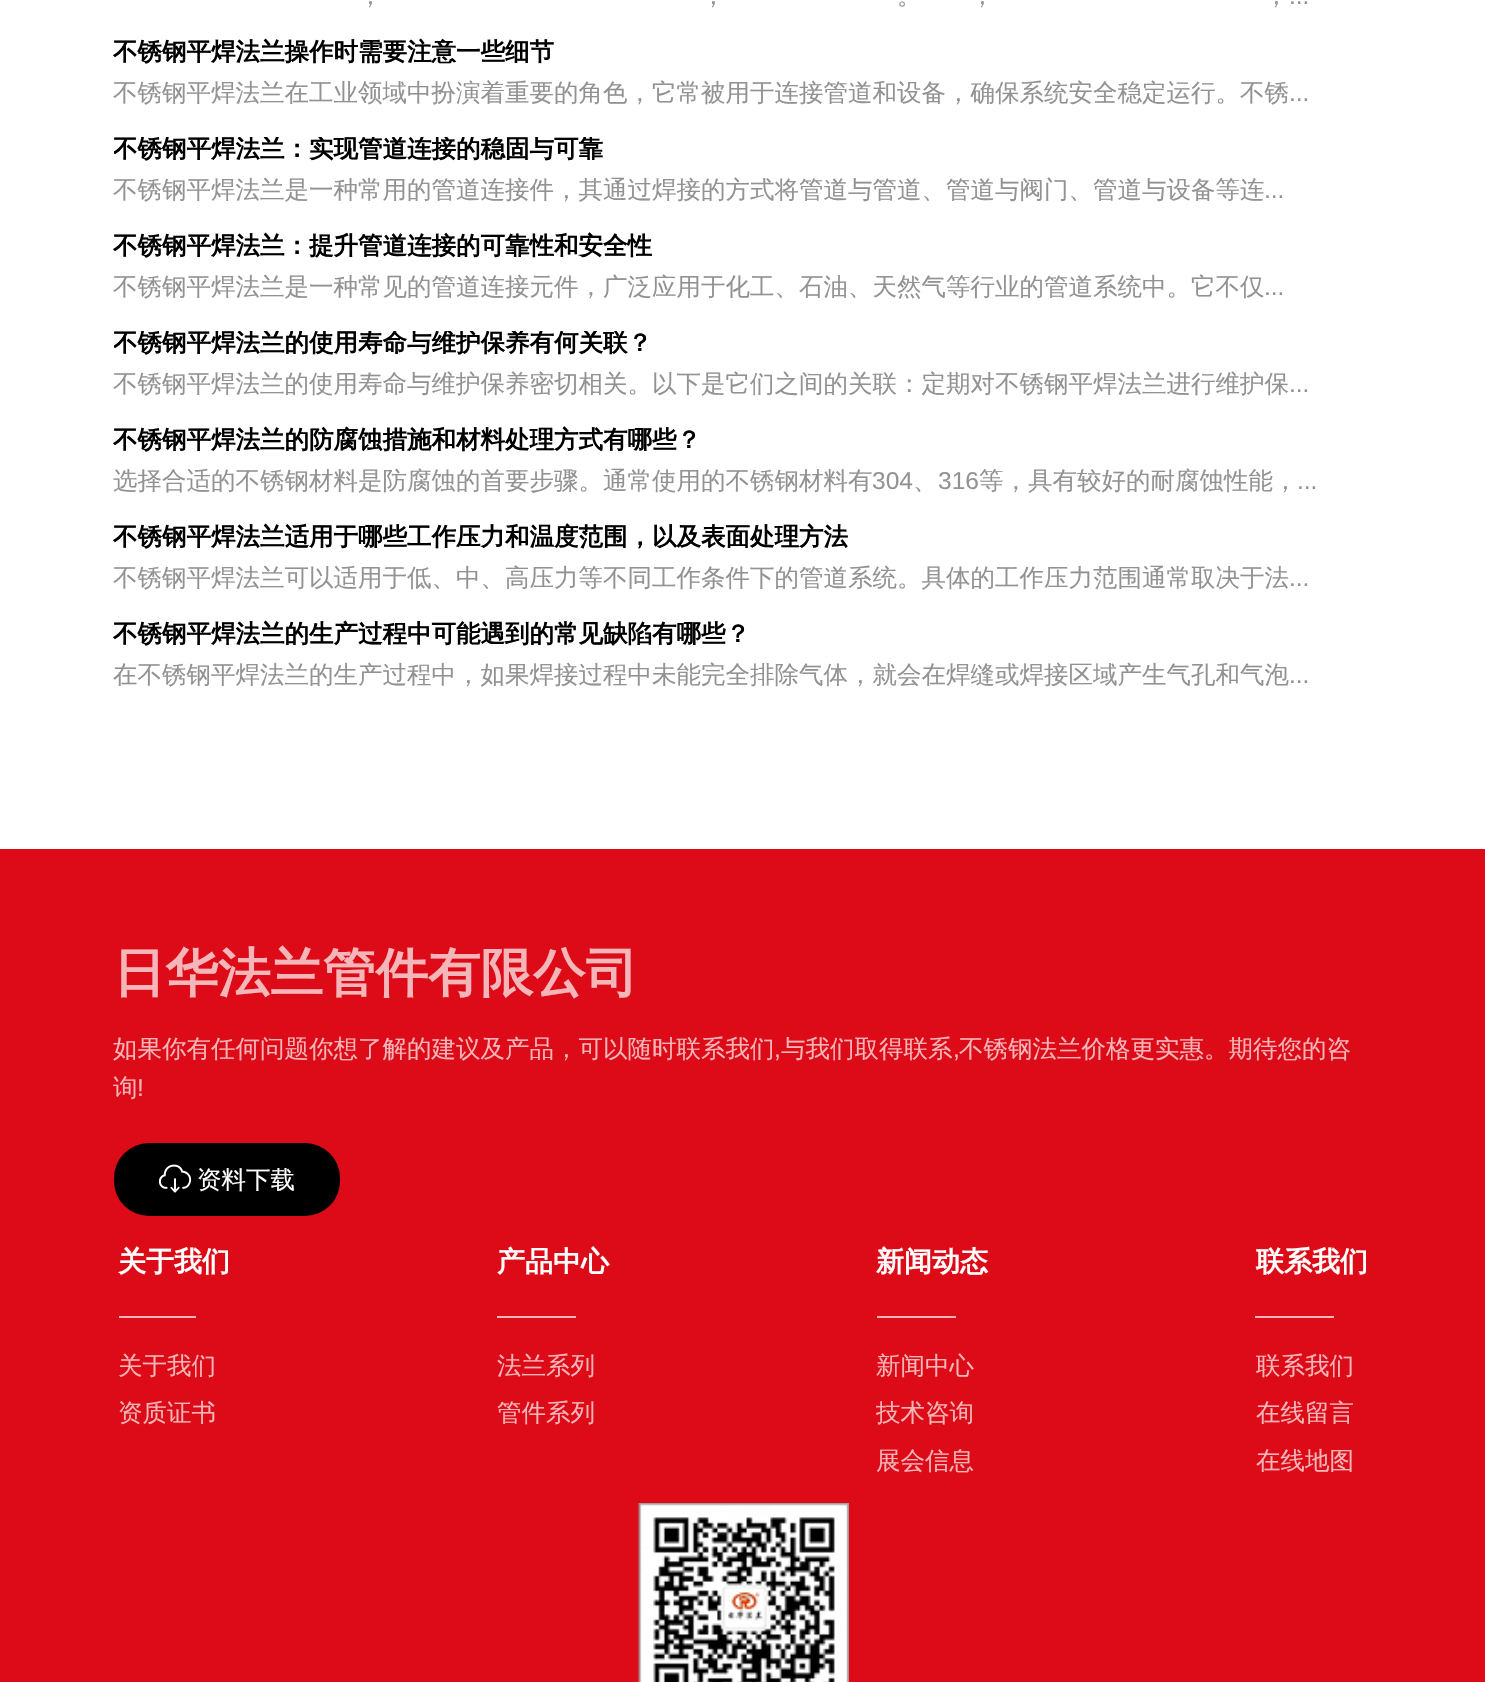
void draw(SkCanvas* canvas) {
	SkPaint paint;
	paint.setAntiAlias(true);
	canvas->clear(0xffffffff);
	SkFont f1(fontMgr->matchFamilyStyle("WenQuanYi Zen Hei", SkFontStyle(500, SkFontStyle::kNormal_Width, SkFontStyle::kUpright_Slant)), 24.5);
	f1.setSubpixel(true);
	paint.setColor(0xff929292);
	canvas->drawString("，", 358, 4, f1, paint);
	canvas->drawString("，", 701, 4, f1, paint);
	canvas->drawString("。", 897, 4, f1, paint);
	canvas->drawString("，", 970, 4, f1, paint);
	canvas->drawString("，", 1264, 4, f1, paint);
	SkFont f2(fontMgr->matchFamilyStyle("Liberation Sans", SkFontStyle::Normal()), 24.5);
	f2.setSubpixel(true);
	canvas->drawString("...", 1289, 4, f2, paint);
	SkFont f3(fontMgr->matchFamilyStyle("WenQuanYi Zen Hei", SkFontStyle::Bold()), 24.5);
	f3.setSubpixel(true);
	paint.setColor(0xff000000);
	canvas->drawString("不锈钢平焊法兰操作时需要注意一些细节", 113, 60, f3, paint);
	paint.setColor(0xff929292);
	canvas->drawString("不锈钢平焊法兰在工业领域中扮演着重要的角色，它常被用于连接管道和设备，确保系统安全稳定运行。不锈", 113, 101, f1, paint);
	canvas->drawString("...", 1289, 101, f2, paint);
	canvas->save();
	canvas->clipRect(SkRect::MakeXYWH(114, 137, 1260, 26));
	paint.setColor(0xff000000);
	canvas->drawString("不锈钢平焊法兰：实现管道连接的稳固与可靠", 113, 157, f3, paint);
	canvas->restore();
	paint.setColor(0xff929292);
	canvas->drawString("不锈钢平焊法兰是一种常用的管道连接件，其通过焊接的方式将管道与管道、管道与阀门、管道与设备等连", 113, 198, f1, paint);
	canvas->drawString("...", 1264, 198, f2, paint);
	paint.setColor(0xff000000);
	canvas->drawString("不锈钢平焊法兰：提升管道连接的可靠性和安全性", 113, 254, f3, paint);
	paint.setColor(0xff929292);
	canvas->drawString("不锈钢平焊法兰是一种常见的管道连接元件，广泛应用于化工、石油、天然气等行业的管道系统中。它不仅", 113, 295, f1, paint);
	canvas->drawString("...", 1264, 295, f2, paint);
	canvas->save();
	canvas->clipRect(SkRect::MakeXYWH(114, 331, 1260, 26));
	paint.setColor(0xff000000);
	canvas->drawString("不锈钢平焊法兰的使用寿命与维护保养有何关联？", 113, 351, f3, paint);
	canvas->restore();
	paint.setColor(0xff929292);
	canvas->drawString("不锈钢平焊法兰的使用寿命与维护保养密切相关。以下是它们之间的关联：定期对不锈钢平焊法兰进行维护保", 113, 392, f1, paint);
	canvas->drawString("...", 1289, 392, f2, paint);
	paint.setColor(0xff000000);
	canvas->drawString("不锈钢平焊法兰的防腐蚀措施和材料处理方式有哪些？", 113, 448, f3, paint);
	paint.setColor(0xff929292);
	canvas->drawString("选择合适的不锈钢材料是防腐蚀的首要步骤。通常使用的不锈钢材料有", 113, 489, f1, paint);
	canvas->drawString("304", 872, 489, f2, paint);
	canvas->drawString("、", 913, 489, f1, paint);
	canvas->drawString("316", 938, 489, f2, paint);
	canvas->drawString("等，具有较好的耐腐蚀性能，", 979, 489, f1, paint);
	canvas->drawString("...", 1297, 489, f2, paint);
	paint.setColor(0xff000000);
	canvas->drawString("不锈钢平焊法兰适用于哪些工作压力和温度范围，以及表面处理方法", 113, 545, f3, paint);
	paint.setColor(0xff929292);
	canvas->drawString("不锈钢平焊法兰可以适用于低、中、高压力等不同工作条件下的管道系统。具体的工作压力范围通常取决于法", 113, 586, f1, paint);
	canvas->drawString("...", 1289, 586, f2, paint);
	paint.setColor(0xff000000);
	canvas->drawString("不锈钢平焊法兰的生产过程中可能遇到的常见缺陷有哪些？", 113, 642, f3, paint);
	paint.setColor(0xff929292);
	canvas->drawString("在不锈钢平焊法兰的生产过程中，如果焊接过程中未能完全排除气体，就会在焊缝或焊接区域产生气孔和气泡", 113, 683, f1, paint);
	canvas->drawString("...", 1289, 683, f2, paint);
	paint.setColor(0xffdc0b17);
	canvas->drawRect(SkRect::MakeXYWH(0, 849, 1485, 833), paint);
	SkFont f4(fontMgr->matchFamilyStyle("WenQuanYi Zen Hei", SkFontStyle::Bold()), 52.5);
	f4.setSubpixel(true);
	paint.setColor(0xfff5b6b9);
	canvas->drawString("日华法兰管件有限公司", 113, 991, f4, paint);
	canvas->drawString("如果你有任何问题你想了解的建议及产品，可以随时联系我们", 113, 1057, f1, paint);
	canvas->drawString(",", 774, 1057, f2, paint);
	canvas->drawString("与我们取得联系", 781, 1057, f1, paint);
	canvas->drawString(",", 953, 1057, f2, paint);
	canvas->drawString("不锈钢法兰价格更实惠。期待您的咨", 959, 1057, f1, paint);
	canvas->drawString("询", 113, 1096, f1, paint);
	canvas->drawString("!", 137, 1096, f2, paint);
	paint.setColor(0xff000000);
	canvas->drawRoundRect(SkRect::MakeXYWH(114, 1143, 226, 73), 35, 35, paint);
	canvas->drawImageRect(SkImages::DeferredFromEncodedData(SkData::MakeFromFileName("img1.png")), SkRect::MakeXYWH(158, 1164, 34, 29), SkSamplingOptions());
	paint.setColor(0xffffffff);
	canvas->drawString("资料下载", 197, 1188, f1, paint);
	SkFont f5(fontMgr->matchFamilyStyle("WenQuanYi Zen Hei", SkFontStyle::Bold()), 28);
	f5.setSubpixel(true);
	canvas->drawString("关于我们", 118, 1271, f5, paint);
	paint.setColor(0xfff5b6b9);
	canvas->drawRect(SkRect::MakeXYWH(119, 1316, 77, 2), paint);
	canvas->drawString("关于我们", 118, 1374, f1, paint);
	canvas->drawString("资质证书", 118, 1421, f1, paint);
	paint.setColor(0xffffffff);
	canvas->drawString("产品中心", 497, 1271, f5, paint);
	paint.setColor(0xfff5b6b9);
	canvas->drawRect(SkRect::MakeXYWH(497, 1316, 79, 2), paint);
	canvas->drawString("法兰系列", 497, 1374, f1, paint);
	canvas->drawString("管件系列", 497, 1421, f1, paint);
	paint.setColor(0xffffffff);
	canvas->drawString("新闻动态", 876, 1271, f5, paint);
	paint.setColor(0xfff5b6b9);
	canvas->drawRect(SkRect::MakeXYWH(877, 1316, 79, 2), paint);
	canvas->drawString("新闻中心", 876, 1374, f1, paint);
	canvas->drawString("技术咨询", 876, 1421, f1, paint);
	canvas->drawString("展会信息", 876, 1469, f1, paint);
	paint.setColor(0xffffffff);
	canvas->drawString("联系我们", 1256, 1271, f5, paint);
	paint.setColor(0xfff5b6b9);
	canvas->drawRect(SkRect::MakeXYWH(1255, 1316, 79, 2), paint);
	canvas->drawString("联系我们", 1256, 1374, f1, paint);
	canvas->drawString("在线留言", 1256, 1421, f1, paint);
	canvas->drawString("在线地图", 1256, 1469, f1, paint);
	canvas->drawImageRect(SkImages::DeferredFromEncodedData(SkData::MakeFromFileName("img2.png")), SkRect::MakeXYWH(637, 1503, 212, 179), SkSamplingOptions());
}
